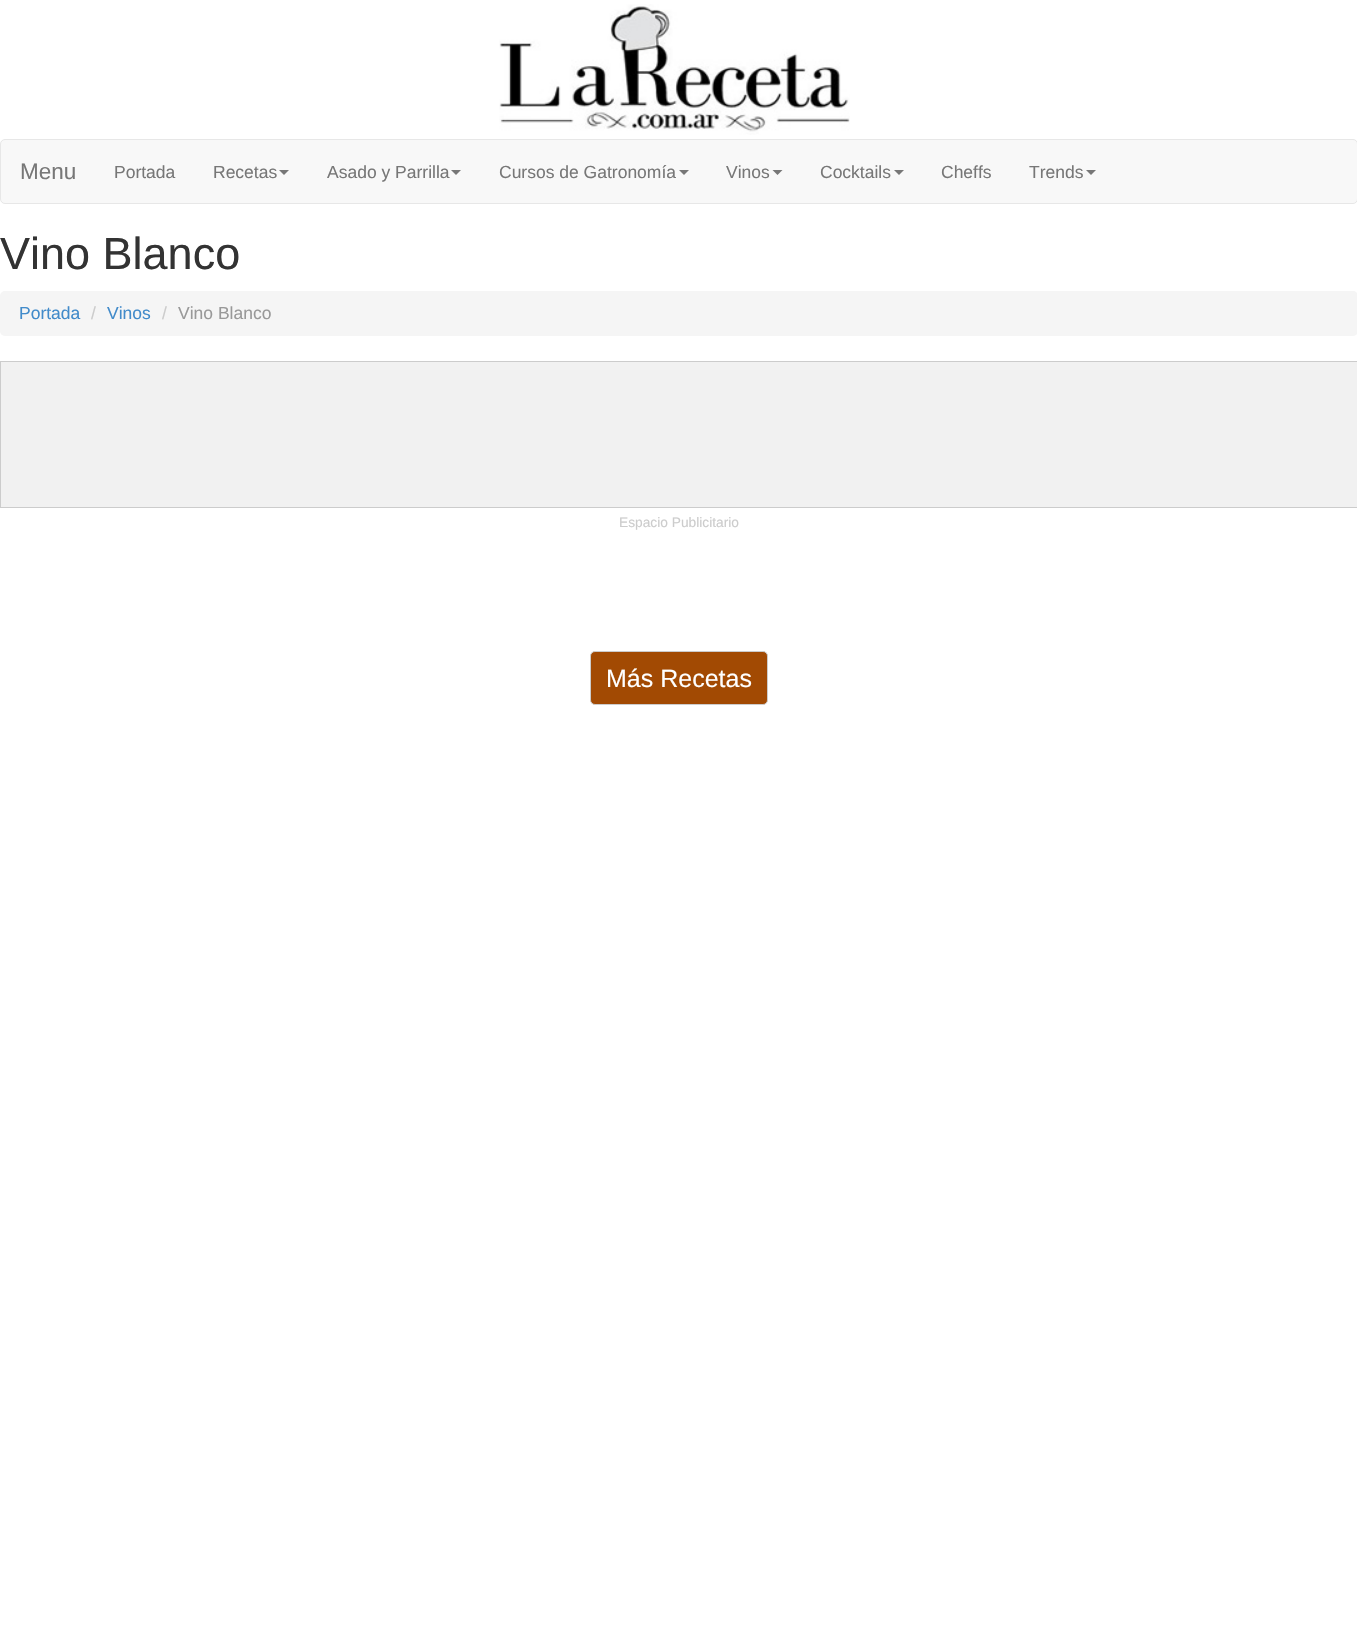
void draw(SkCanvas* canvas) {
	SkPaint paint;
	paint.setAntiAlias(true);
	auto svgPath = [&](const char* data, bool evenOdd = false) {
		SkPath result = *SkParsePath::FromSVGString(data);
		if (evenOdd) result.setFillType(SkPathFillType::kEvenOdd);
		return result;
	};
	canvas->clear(0xffffffff);
	canvas->drawImageRect(SkImages::DeferredFromEncodedData(SkData::MakeFromFileName("img1.png")), SkRect::MakeXYWH(499, 4, 351, 131), SkSamplingOptions());
	paint.setColor(0xfff8f8f8);
	canvas->drawRoundRect(SkRect::MakeXYWH(0.5, 139.5, 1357, 64), 4.5, 4.5, paint);
	paint.setStroke(true);
	paint.setStrokeWidth(1);
	paint.setColor(0xffe7e7e7);
	canvas->drawRoundRect(SkRect::MakeXYWH(0.5, 139.5, 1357, 64), 4.5, 4.5, paint);
	SkFont f1(fontMgr->matchFamilyStyle("Liberation Sans", SkFontStyle::Normal()), 22.5);
	f1.setSubpixel(true);
	paint.setStroke(false);
	paint.setColor(0xff777777);
	canvas->drawString("Menu", 20, 179, f1, paint);
	SkFont f2(fontMgr->matchFamilyStyle("Liberation Sans", SkFontStyle::Normal()), 17.5);
	f2.setSubpixel(true);
	canvas->drawString("Portada", 114, 178, f2, paint);
	canvas->drawString("Recetas", 213, 178, f2, paint);
	canvas->drawPath(svgPath("M279 170H289L284 175Z"), paint);
	canvas->drawString("Asado y Parrilla", 327, 178, f2, paint);
	canvas->drawPath(svgPath("M451 170H461L456 175Z"), paint);
	canvas->drawString("Cursos de Gatronomía", 499, 178, f2, paint);
	canvas->drawPath(svgPath("M679 170H689L684 175Z"), paint);
	canvas->drawString("Vinos", 726, 178, f2, paint);
	canvas->drawPath(svgPath("M772.5 170H782.5L777.5 175Z"), paint);
	canvas->drawString("Cocktails", 820, 178, f2, paint);
	canvas->drawPath(svgPath("M894 170H904L899 175Z"), paint);
	canvas->drawString("Cheffs", 941, 178, f2, paint);
	canvas->drawString("Trends", 1029, 178, f2, paint);
	canvas->drawPath(svgPath("M1086 170H1096L1091 175Z"), paint);
	SkFont f3(fontMgr->matchFamilyStyle("Liberation Sans", SkFontStyle::Normal()), 45);
	f3.setSubpixel(true);
	paint.setColor(0xff333333);
	canvas->drawString("Vino Blanco", 0, 269, f3, paint);
	paint.setColor(0xfff5f5f5);
	canvas->drawRoundRect(SkRect::MakeXYWH(0, 291, 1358, 45), 5, 5, paint);
	paint.setColor(0xff428bca);
	canvas->drawString("Portada", 19, 319, f2, paint);
	paint.setColor(0xffcccccc);
	canvas->drawString("/", 91, 319, f2, paint);
	paint.setColor(0xff428bca);
	canvas->drawString("Vinos", 107, 319, f2, paint);
	paint.setColor(0xffcccccc);
	canvas->drawString("/", 162, 319, f2, paint);
	paint.setColor(0xff999999);
	canvas->drawString("Vino Blanco", 178, 319, f2, paint);
	paint.setColor(0xfff1f1f1);
	canvas->drawRect(SkRect::MakeXYWH(0.5, 361.5, 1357, 146), paint);
	paint.setStroke(true);
	paint.setColor(0xffcccccc);
	canvas->drawRect(SkRect::MakeXYWH(0.5, 361.5, 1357, 146), paint);
	SkFont f4(fontMgr->matchFamilyStyle("Liberation Sans", SkFontStyle::Normal()), 13.75);
	f4.setSubpixel(true);
	paint.setStroke(false);
	canvas->drawString("Espacio Publicitario", 619, 527, f4, paint);
	paint.setColor(0xffa24a03);
	canvas->drawRoundRect(SkRect::MakeXYWH(590.5, 651.5, 177, 53), 4.5, 4.5, paint);
	paint.setStroke(true);
	paint.setColor(0xffcccccc);
	canvas->drawRoundRect(SkRect::MakeXYWH(590.5, 651.5, 177, 53), 4.5, 4.5, paint);
	SkFont f5(fontMgr->matchFamilyStyle("Liberation Sans", SkFontStyle::Normal()), 25);
	f5.setSubpixel(true);
	paint.setStroke(false);
	paint.setColor(0xffffffff);
	canvas->drawString("Más Recetas", 606, 687, f5, paint);
}
